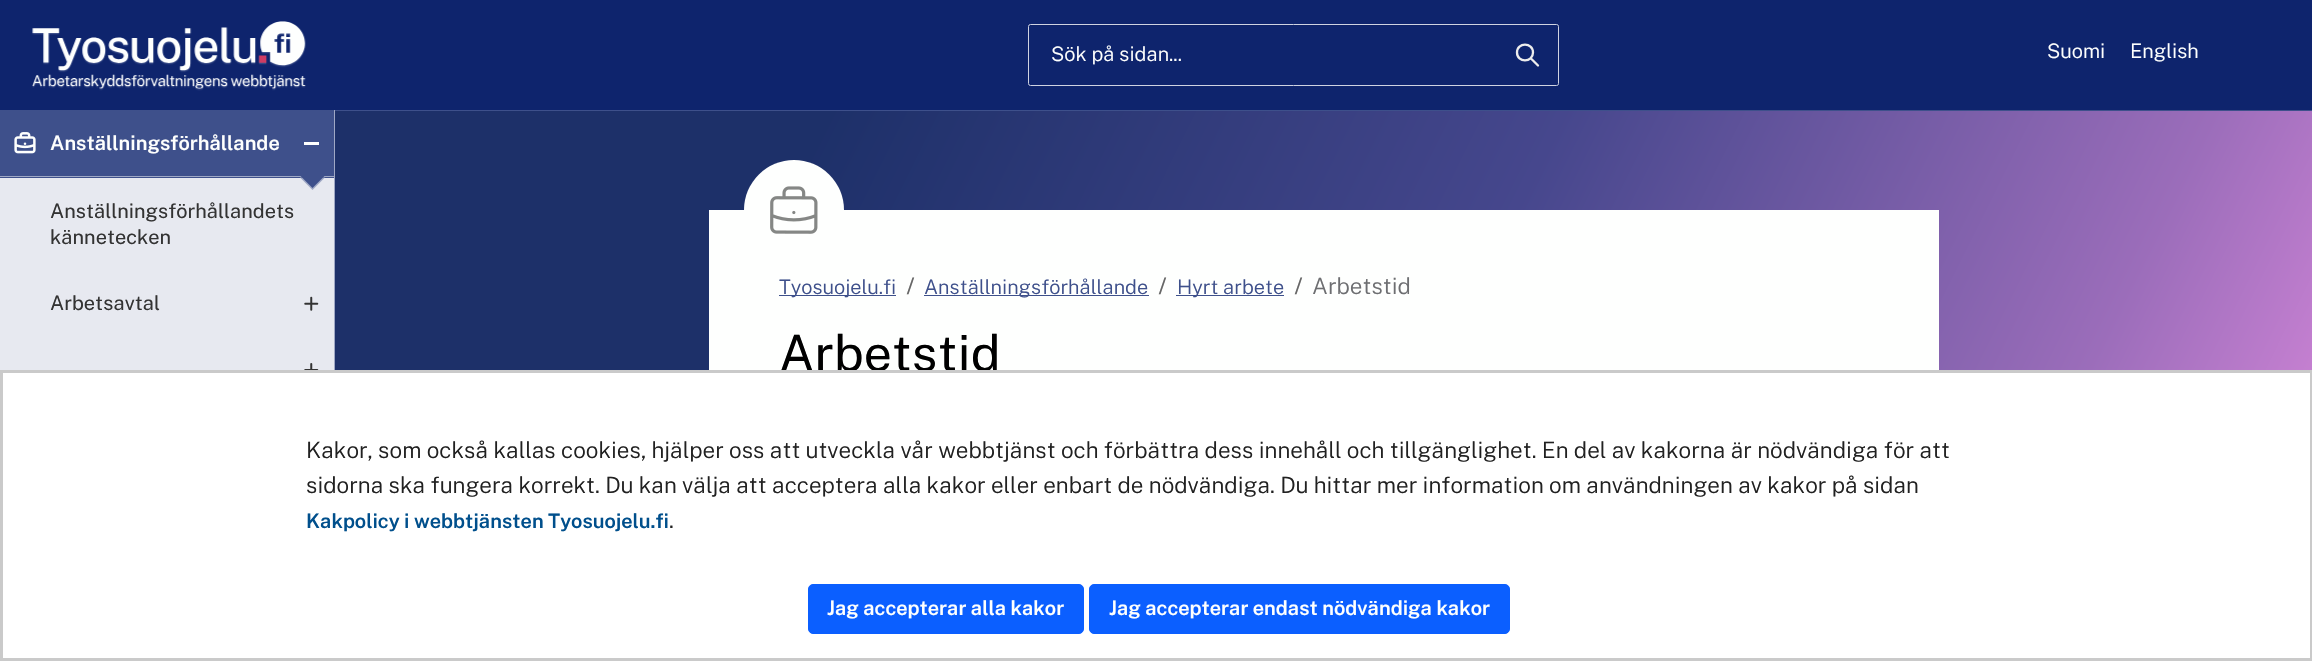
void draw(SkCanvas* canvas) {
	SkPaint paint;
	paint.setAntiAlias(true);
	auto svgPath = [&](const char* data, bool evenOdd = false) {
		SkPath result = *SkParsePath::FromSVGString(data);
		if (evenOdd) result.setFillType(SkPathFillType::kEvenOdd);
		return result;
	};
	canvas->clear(0xffffffff);
	paint.setColor(0xff3e508b);
	canvas->drawPath(svgPath("M0 110V111H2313V1H2312V110Z"), paint);
	paint.setColor(0xff0e246d);
	canvas->drawRect(SkRect::MakeXYWH(0, 0, 2312, 110), paint);
	paint.setColor(0xff0d2165);
	canvas->drawPath(svgPath("M1030 26H1556C1557 26 1558 27 1558 28V25H1557H1030C1029 25 1029 27 1029 28C1029 27 1029 26 1030 26Z"), paint);
	paint.setStroke(true);
	paint.setStrokeWidth(1);
	paint.setColor(0xffcfd3e2);
	canvas->drawRoundRect(SkRect::MakeXYWH(1028.5, 24.5, 530, 61), 2, 2, paint);
	SkFont f1(fontMgr->matchFamilyStyle("Public Sans", SkFontStyle(300, SkFontStyle::kNormal_Width, SkFontStyle::kUpright_Slant)), 20);
	f1.setSubpixel(true);
	paint.setStroke(false);
	paint.setColor(0xfffefffe);
	canvas->drawString("Sök på sidan...", 1051, 61, f1, paint);
	paint.setColor(0xff0e246d);
	canvas->drawRoundRect(SkRect::MakeXYWH(1498, 25, 60, 60), 2.5, 2.5, paint);
	paint.setStroke(true);
	paint.setStrokeWidth(2.3);
	paint.setStrokeCap(SkPaint::kRound_Cap);
	paint.setStrokeJoin(SkPaint::kRound_Join);
	paint.setColor(0xffededed);
	canvas->drawPath(svgPath("M1538 65.5L1531 58.5M1533 52.5C1533 63 1517 63 1517 52.5C1517 42 1533 42 1533 52.5Z"), paint);
	paint.setStroke(false);
	paint.setColor(0xfffefffe);
	canvas->drawString("Suomi", 2047, 58, f1, paint);
	canvas->drawString("English", 2130, 58, f1, paint);
	paint.setColor(0xff3e508b);
	canvas->drawRect(SkRect::MakeXYWH(0, 111, 334, 67), paint);
	canvas->drawImageRect(SkImages::DeferredFromEncodedData(SkData::MakeFromFileName("img1.png")), SkRect::MakeXYWH(32, 21, 274, 70), SkSamplingOptions());
	paint.setColor(0xff9fa8c5);
	canvas->drawRect(SkRect::MakeXYWH(334, 110, 1, 260), paint);
	canvas->drawImageRect(SkImages::DeferredFromEncodedData(SkData::MakeFromFileName("img2.png")), SkRect::MakeXYWH(14, 132, 22, 22), SkSamplingOptions());
	SkFont f2(fontMgr->matchFamilyStyle("Public Sans", SkFontStyle(600, SkFontStyle::kNormal_Width, SkFontStyle::kUpright_Slant)), 20);
	f2.setSubpixel(true);
	paint.setColor(0xfffefffe);
	canvas->drawString("Anställningsförhållande", 50, 150, f2, paint);
	canvas->drawRect(SkRect::MakeXYWH(304, 142, 15, 3), paint);
	paint.setColor(0xffe7e9f0);
	canvas->drawRect(SkRect::MakeXYWH(0, 178, 334, 192), paint);
	paint.setColor(0xff9fa8c5);
	canvas->drawRect(SkRect::MakeXYWH(0, 176, 334, 1), paint);
	canvas->drawPath(svgPath("M300 177.5H325L312.5 190Z"), paint);
	paint.setColor(0xff3e508b);
	canvas->drawPath(svgPath("M300 175.5H325L312.5 188Z"), paint);
	SkFont f3(fontMgr->matchFamilyStyle("Public Sans", SkFontStyle::Normal()), 20);
	f3.setSubpixel(true);
	paint.setColor(0xff333333);
	canvas->drawString("Anställningsförhållandets", 50, 218, f3, paint);
	canvas->drawString("kännetecken", 50, 244, f3, paint);
	canvas->drawString("Arbetsavtal", 50, 310, f3, paint);
	canvas->drawImageRect(SkImages::DeferredFromEncodedData(SkData::MakeFromFileName("img3.png")), SkRect::MakeXYWH(304, 296, 15, 15), SkSamplingOptions());
	canvas->drawImageRect(SkImages::DeferredFromEncodedData(SkData::MakeFromFileName("img4.png")), SkRect::MakeXYWH(304, 363, 15, 7), SkSamplingOptions());
	{
		const SkColor colors[] = {0xff1d3069, 0xff46478d, 0xff9b6dba, 0xffdc8add};
		const float stops[] = {0.22, 0.55, 0.84, 1};
		const SkPoint ends[] = {{469, -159}, {2264, 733}};
		paint.setShader(SkGradientShader::MakeLinear(ends, colors, stops, 4, SkTileMode::kClamp));
		paint.setAlpha(255);
	}
	canvas->drawRect(SkRect::MakeXYWH(335, 111, 1977, 259), paint);
	paint.setShader(nullptr);
	paint.setColor(0xfffefffe);
	canvas->drawRect(SkRect::MakeXYWH(709, 210, 1230, 160), paint);
	canvas->drawCircle(794, 210, 50, paint);
	canvas->drawImageRect(SkImages::DeferredFromEncodedData(SkData::MakeFromFileName("img5.png")), SkRect::MakeXYWH(770, 186, 48, 48), SkSamplingOptions());
	paint.setColor(0xff3e508b);
	canvas->drawRect(SkRect::MakeXYWH(779, 295, 117, 1), paint);
	canvas->drawString("Tyosuojelu.fi", 779, 294, f1, paint);
	SkFont f4(fontMgr->matchFamilyStyle("Liberation Serif", SkFontStyle::Bold()), 25);
	f4.setSubpixel(true);
	paint.setColor(0xff666666);
	canvas->drawString("/", 907, 294, f4, paint);
	paint.setColor(0xff3e508b);
	canvas->drawRect(SkRect::MakeXYWH(924, 295, 225, 1), paint);
	canvas->drawString("Anställningsförhållande", 924, 294, f1, paint);
	paint.setColor(0xff666666);
	canvas->drawString("/", 1159, 294, f4, paint);
	paint.setColor(0xff3e508b);
	canvas->drawRect(SkRect::MakeXYWH(1176, 295, 108, 1), paint);
	canvas->drawString("Hyrt arbete", 1177, 294, f1, paint);
	paint.setColor(0xff666666);
	canvas->drawString("/", 1295, 294, f4, paint);
	SkFont f5(fontMgr->matchFamilyStyle("Public Sans", SkFontStyle(300, SkFontStyle::kNormal_Width, SkFontStyle::kUpright_Slant)), 22.5);
	f5.setSubpixel(true);
	paint.setColor(0xff6d6e71);
	canvas->drawString("Arbetstid", 1312, 294, f5, paint);
	SkFont f6(fontMgr->matchFamilyStyle("Public Sans", SkFontStyle::Normal()), 50);
	f6.setSubpixel(true);
	paint.setColor(0xff000000);
	canvas->drawString("Arbetstid", 779, 371, f6, paint);
	paint.setStroke(true);
	paint.setStrokeWidth(3);
	paint.setStrokeCap(SkPaint::kButt_Cap);
	paint.setStrokeJoin(SkPaint::kMiter_Join);
	paint.setColor(0xffcacaca);
	canvas->drawRect(SkRect::MakeXYWH(1.5, 371.5, 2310, 288), paint);
	paint.setStroke(false);
	paint.setColor(0xff212121);
	canvas->drawString("Kakor, som också kallas cookies, hjälper oss att utveckla vår webbtjänst och förbättra dess innehåll och tillgänglighet. En del av kakorna är nödvändiga för att", 306, 458, f5, paint);
	canvas->drawString("sidorna ska fungera korrekt. Du kan välja att acceptera alla kakor eller enbart de nödvändiga. Du hittar mer information om användningen av kakor på sidan", 306, 493, f5, paint);
	paint.setColor(0xff004f8c);
	canvas->drawString("Kakpolicy i webbtjänsten Tyosuojelu.fi", 306, 528, f2, paint);
	paint.setColor(0xff212121);
	canvas->drawString(".", 669, 528, f5, paint);
	paint.setColor(0xff0b5fff);
	canvas->drawRoundRect(SkRect::MakeXYWH(808.5, 584.5, 275, 49), 4.5, 4.5, paint);
	paint.setStroke(true);
	paint.setStrokeWidth(1);
	canvas->drawRoundRect(SkRect::MakeXYWH(808.5, 584.5, 275, 49), 4.5, 4.5, paint);
	paint.setStroke(false);
	paint.setColor(0xfffefffe);
	canvas->drawString("Jag accepterar alla kakor", 827, 615, f2, paint);
	paint.setColor(0xff0b5fff);
	canvas->drawRoundRect(SkRect::MakeXYWH(1089.5, 584.5, 420, 49), 4.5, 4.5, paint);
	paint.setStroke(true);
	canvas->drawRoundRect(SkRect::MakeXYWH(1089.5, 584.5, 420, 49), 4.5, 4.5, paint);
	paint.setStroke(false);
	paint.setColor(0xfffefffe);
	canvas->drawString("Jag accepterar endast nödvändiga kakor", 1109, 615, f2, paint);
}
